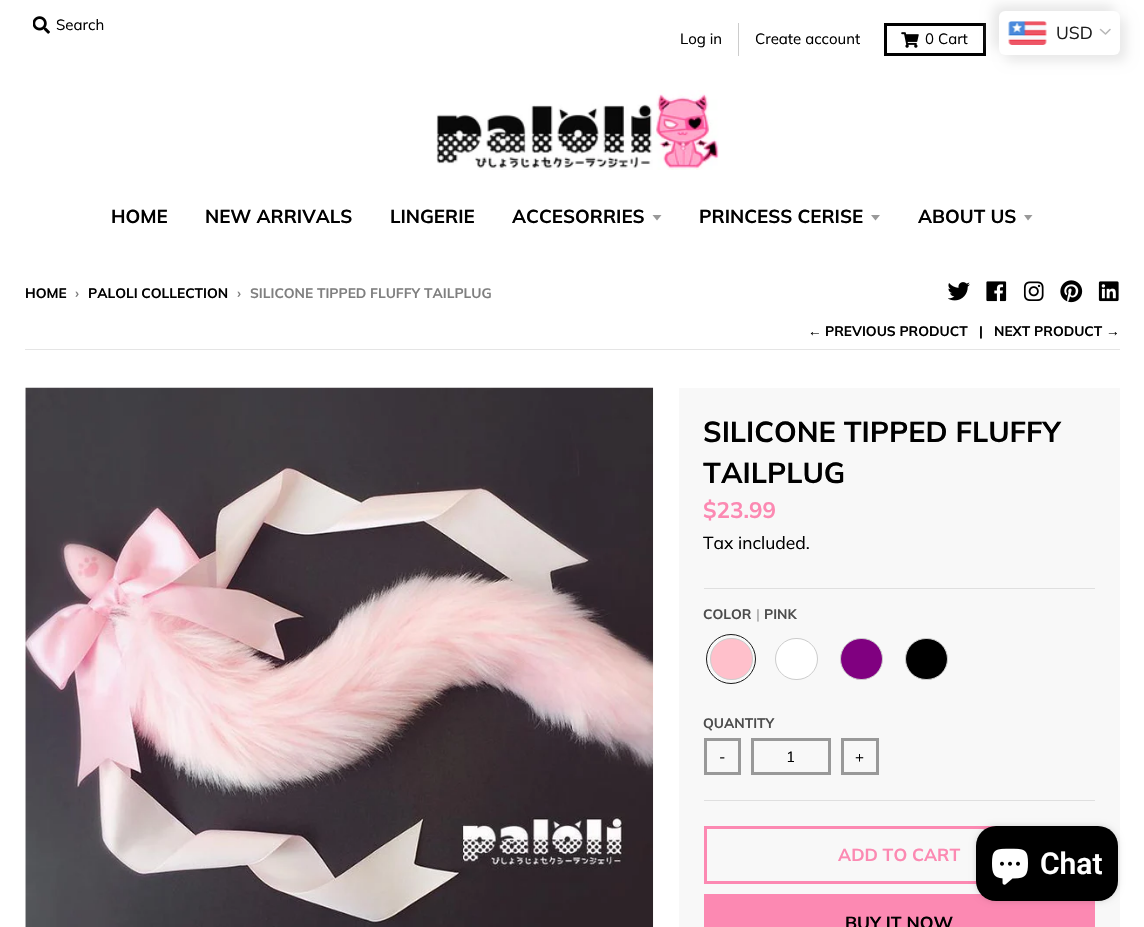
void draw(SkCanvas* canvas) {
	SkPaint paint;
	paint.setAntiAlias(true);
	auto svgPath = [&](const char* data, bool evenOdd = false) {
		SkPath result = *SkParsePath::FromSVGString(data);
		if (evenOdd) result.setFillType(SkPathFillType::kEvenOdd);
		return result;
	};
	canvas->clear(0xffffffff);
	canvas->drawImageRect(SkImages::DeferredFromEncodedData(SkData::MakeFromFileName("img1.png")), SkRect::MakeXYWH(33, 16, 17, 18), SkSamplingOptions());
	SkFont f1(fontMgr->matchFamilyStyle("Muli", SkFontStyle::Normal()), 15);
	f1.setSubpixel(true);
	paint.setColor(0xff000000);
	canvas->drawString("Search", 56, 30, f1, paint);
	paint.setColor(0xffcccccc);
	canvas->drawRect(SkRect::MakeXYWH(738, 23, 1, 33), paint);
	paint.setColor(0xff000000);
	canvas->drawString("Log in", 680, 44, f1, paint);
	canvas->drawString("Create account", 755, 44, f1, paint);
	paint.setStroke(true);
	paint.setStrokeWidth(3);
	canvas->drawRect(SkRect::MakeXYWH(885.5, 24.5, 99, 30), paint);
	canvas->drawImageRect(SkImages::DeferredFromEncodedData(SkData::MakeFromFileName("img2.png")), SkRect::MakeXYWH(901, 32, 18, 16), SkSamplingOptions());
	paint.setStroke(false);
	canvas->drawString("0 Cart", 925, 44, f1, paint);
	paint.setColor(0xffe8e8e8);
	paint.setMaskFilter(SkMaskFilter::MakeBlur(kNormal_SkBlurStyle, 6));
	canvas->drawRoundRect(SkRect::MakeXYWH(993, 5, 121, 44), 6, 6, paint);
	paint.setMaskFilter(nullptr);
	paint.setMaskFilter(SkMaskFilter::MakeBlur(kNormal_SkBlurStyle, 6));
	canvas->drawRoundRect(SkRect::MakeXYWH(1005, 18, 121, 43), 6, 6, paint);
	paint.setMaskFilter(nullptr);
	paint.setColor(0xffffffff);
	canvas->drawRoundRect(SkRect::MakeXYWH(999, 11, 121, 44), 6, 6, paint);
	canvas->drawImageRect(SkImages::DeferredFromEncodedData(SkData::MakeFromFileName("img3.png")), SkRect::MakeXYWH(1008, 21, 39, 24), SkSamplingOptions());
	SkFont f2(fontMgr->matchFamilyStyle("Muli", SkFontStyle::Normal()), 17.5);
	f2.setSubpixel(true);
	paint.setColor(0xff1e1e1e);
	canvas->drawString("USD", 1056, 39, f2, paint);
	paint.setStroke(true);
	paint.setStrokeWidth(1.6);
	paint.setStrokeCap(SkPaint::kRound_Cap);
	paint.setStrokeJoin(SkPaint::kRound_Join);
	paint.setColor(0xffb7b7b7);
	canvas->drawPath(svgPath("M1100.5 29.5L1105.5 34L1110 29.5"), paint);
	canvas->drawImageRect(SkImages::DeferredFromEncodedData(SkData::MakeFromFileName("img4.png")), SkRect::MakeXYWH(436, 90, 283, 80), SkSamplingOptions());
	SkFont f3(fontMgr->matchFamilyStyle("Muli", SkFontStyle::Bold()), 18.75);
	f3.setSubpixel(true);
	paint.setStroke(false);
	paint.setColor(0xff000000);
	canvas->drawString("HOME", 111, 223, f3, paint);
	canvas->drawString("NEW ARRIVALS", 205, 223, f3, paint);
	canvas->drawString("LINGERIE", 390, 223, f3, paint);
	canvas->drawString("ACCESORRIES", 512, 223, f3, paint);
	paint.setColor(0xff999999);
	canvas->drawPath(svgPath("M652.5 215L657 220.5L661.5 215Z"), paint);
	paint.setColor(0xff000000);
	canvas->drawString("PRINCESS CERISE", 699, 223, f3, paint);
	paint.setColor(0xff999999);
	canvas->drawPath(svgPath("M871 215L875.5 220.5L880 215Z"), paint);
	paint.setColor(0xff000000);
	canvas->drawString("ABOUT US", 918, 223, f3, paint);
	paint.setColor(0xff999999);
	canvas->drawPath(svgPath("M1024 215L1028 220.5L1032.5 215Z"), paint);
	SkFont f4(fontMgr->matchFamilyStyle("Muli", SkFontStyle::Bold()), 13.75);
	f4.setSubpixel(true);
	paint.setColor(0xff000000);
	canvas->drawString("HOME", 25, 298, f4, paint);
	paint.setColor(0xff7f7f7f);
	canvas->drawString("›", 75, 298, f4, paint);
	paint.setColor(0xff000000);
	canvas->drawString("PALOLI COLLECTION", 88, 298, f4, paint);
	paint.setColor(0xff7f7f7f);
	canvas->drawString("›", 237, 298, f4, paint);
	canvas->drawString("SILICONE TIPPED FLUFFY TAILPLUG", 250, 298, f4, paint);
	canvas->drawImageRect(SkImages::DeferredFromEncodedData(SkData::MakeFromFileName("img5.png")), SkRect::MakeXYWH(948, 282, 22, 19), SkSamplingOptions());
	canvas->drawImageRect(SkImages::DeferredFromEncodedData(SkData::MakeFromFileName("img6.png")), SkRect::MakeXYWH(986, 281, 21, 21), SkSamplingOptions());
	canvas->drawImageRect(SkImages::DeferredFromEncodedData(SkData::MakeFromFileName("img7.png")), SkRect::MakeXYWH(1023, 281, 21, 20), SkSamplingOptions());
	canvas->drawImageRect(SkImages::DeferredFromEncodedData(SkData::MakeFromFileName("img8.png")), SkRect::MakeXYWH(1060, 280, 23, 23), SkSamplingOptions());
	canvas->drawImageRect(SkImages::DeferredFromEncodedData(SkData::MakeFromFileName("img9.png")), SkRect::MakeXYWH(1098, 281, 21, 21), SkSamplingOptions());
	paint.setColor(0xffe5e5e5);
	canvas->drawRect(SkRect::MakeXYWH(25, 349, 1095, 1), paint);
	SkFont f5(fontMgr->matchFamilyStyle("Liberation Sans", SkFontStyle::Bold()), 13.75);
	f5.setSubpixel(true);
	paint.setColor(0xff000000);
	canvas->drawString("←", 808, 336, f5, paint);
	canvas->drawString("PREVIOUS PRODUCT", 825, 336, f4, paint);
	canvas->drawString("|", 979, 336, f4, paint);
	canvas->drawString("NEXT PRODUCT", 994, 336, f4, paint);
	canvas->drawString("→", 1106, 336, f5, paint);
	canvas->drawImageRect(SkImages::DeferredFromEncodedData(SkData::MakeFromFileName("img10.png")), SkRect::MakeXYWH(25, 387, 629, 540), SkSamplingOptions());
	paint.setColor(0xfff8f8f8);
	canvas->drawRect(SkRect::MakeXYWH(679, 388, 441, 539), paint);
	SkFont f6(fontMgr->matchFamilyStyle("Muli", SkFontStyle::Bold()), 28.9);
	f6.setSubpixel(true);
	paint.setColor(0xff000000);
	canvas->drawString("SILICONE TIPPED FLUFFY", 703, 442, f6, paint);
	canvas->drawString("TAILPLUG", 703, 483, f6, paint);
	paint.setColor(0xffdfdfdf);
	canvas->drawRect(SkRect::MakeXYWH(704, 588, 391, 1), paint);
	SkFont f7(fontMgr->matchFamilyStyle("Muli", SkFontStyle::Bold()), 22.5);
	f7.setSubpixel(true);
	paint.setColor(0xfffc89b2);
	canvas->drawString("$23.99", 703, 518, f7, paint);
	paint.setColor(0xff000000);
	canvas->drawString("Tax included.", 703, 549, f2, paint);
	paint.setColor(0xffdfdfdf);
	canvas->drawRect(SkRect::MakeXYWH(704, 800, 391, 1), paint);
	paint.setColor(0xff4c4c4c);
	canvas->drawString("COLOR", 703, 619, f4, paint);
	paint.setColor(0xffb2b2b2);
	canvas->drawString("|", 756, 619, f4, paint);
	paint.setColor(0xff4c4c4c);
	canvas->drawString("PINK", 764, 619, f4, paint);
	paint.setStroke(true);
	paint.setStrokeWidth(1);
	paint.setStrokeCap(SkPaint::kButt_Cap);
	paint.setStrokeJoin(SkPaint::kMiter_Join);
	paint.setColor(0xff191919);
	canvas->drawCircle(731, 659, 24.5, paint);
	paint.setStroke(false);
	paint.setColor(0xffffc0cb);
	canvas->drawRoundRect(SkRect::MakeXYWH(710.5, 638.5, 42, 41), 20.5, 20.5, paint);
	paint.setStroke(true);
	paint.setColor(0xffcccccc);
	canvas->drawRoundRect(SkRect::MakeXYWH(710.5, 638.5, 42, 41), 20.5, 20.5, paint);
	paint.setStroke(false);
	paint.setColor(0xffffffff);
	canvas->drawRoundRect(SkRect::MakeXYWH(775.5, 638.5, 42, 41), 20.5, 20.5, paint);
	paint.setStroke(true);
	paint.setColor(0xffcccccc);
	canvas->drawRoundRect(SkRect::MakeXYWH(775.5, 638.5, 42, 41), 20.5, 20.5, paint);
	paint.setStroke(false);
	paint.setColor(0xff800080);
	canvas->drawRoundRect(SkRect::MakeXYWH(840.5, 638.5, 42, 41), 20.5, 20.5, paint);
	paint.setStroke(true);
	paint.setColor(0xffcccccc);
	canvas->drawRoundRect(SkRect::MakeXYWH(840.5, 638.5, 42, 41), 20.5, 20.5, paint);
	paint.setStroke(false);
	paint.setColor(0xff000000);
	canvas->drawRoundRect(SkRect::MakeXYWH(905.5, 638.5, 42, 41), 20.5, 20.5, paint);
	paint.setStroke(true);
	paint.setColor(0xffcccccc);
	canvas->drawRoundRect(SkRect::MakeXYWH(905.5, 638.5, 42, 41), 20.5, 20.5, paint);
	paint.setStroke(false);
	paint.setColor(0xff4c4c4c);
	canvas->drawString("QUANTITY", 703, 728, f4, paint);
	paint.setStroke(true);
	paint.setStrokeWidth(3);
	paint.setColor(0xff999999);
	canvas->drawRect(SkRect::MakeXYWH(705.5, 739.5, 34, 34), paint);
	paint.setStroke(false);
	paint.setColor(0xff000000);
	canvas->drawString("-", 719, 762, f1, paint);
	paint.setStroke(true);
	paint.setColor(0xff999999);
	canvas->drawRect(SkRect::MakeXYWH(752.5, 739.5, 77, 34), paint);
	paint.setStroke(false);
	paint.setColor(0xff000000);
	canvas->drawString("1", 786, 762, f1, paint);
	paint.setStroke(true);
	paint.setColor(0xff999999);
	canvas->drawRect(SkRect::MakeXYWH(842.5, 739.5, 35, 34), paint);
	paint.setStroke(false);
	paint.setColor(0xff000000);
	canvas->drawString("+", 855, 762, f1, paint);
	paint.setStroke(true);
	paint.setColor(0xfffc89b2);
	canvas->drawRect(SkRect::MakeXYWH(705.5, 827.5, 388, 55), paint);
	SkFont f8(fontMgr->matchFamilyStyle("Muli", SkFontStyle::Bold()), 17.5);
	f8.setSubpixel(true);
	paint.setStroke(false);
	canvas->drawString("ADD TO CART", 838, 861, f8, paint);
	canvas->drawRect(SkRect::MakeXYWH(704, 894, 391, 33), paint);
	paint.setColor(0xff000000);
	canvas->drawString("BUY IT NOW", 845, 929, f8, paint);
	paint.setColor(0x26000000);
	paint.setMaskFilter(SkMaskFilter::MakeBlur(kNormal_SkBlurStyle, 3));
	canvas->drawRoundRect(SkRect::MakeXYWH(976, 826, 142, 75), 20, 20, paint);
	paint.setMaskFilter(nullptr);
	paint.setColor(0xff000000);
	canvas->drawRoundRect(SkRect::MakeXYWH(976, 826, 142, 75), 20, 20, paint);
	canvas->drawImageRect(SkImages::DeferredFromEncodedData(SkData::MakeFromFileName("img11.png")), SkRect::MakeXYWH(992, 848, 36, 37), SkSamplingOptions());
	SkFont f9(fontMgr->matchFamilyStyle("Roboto", SkFontStyle(600, SkFontStyle::kNormal_Width, SkFontStyle::kUpright_Slant)), 30);
	f9.setSubpixel(true);
	paint.setColor(0xffffffff);
	canvas->drawString("Chat", 1040, 874, f9, paint);
}
